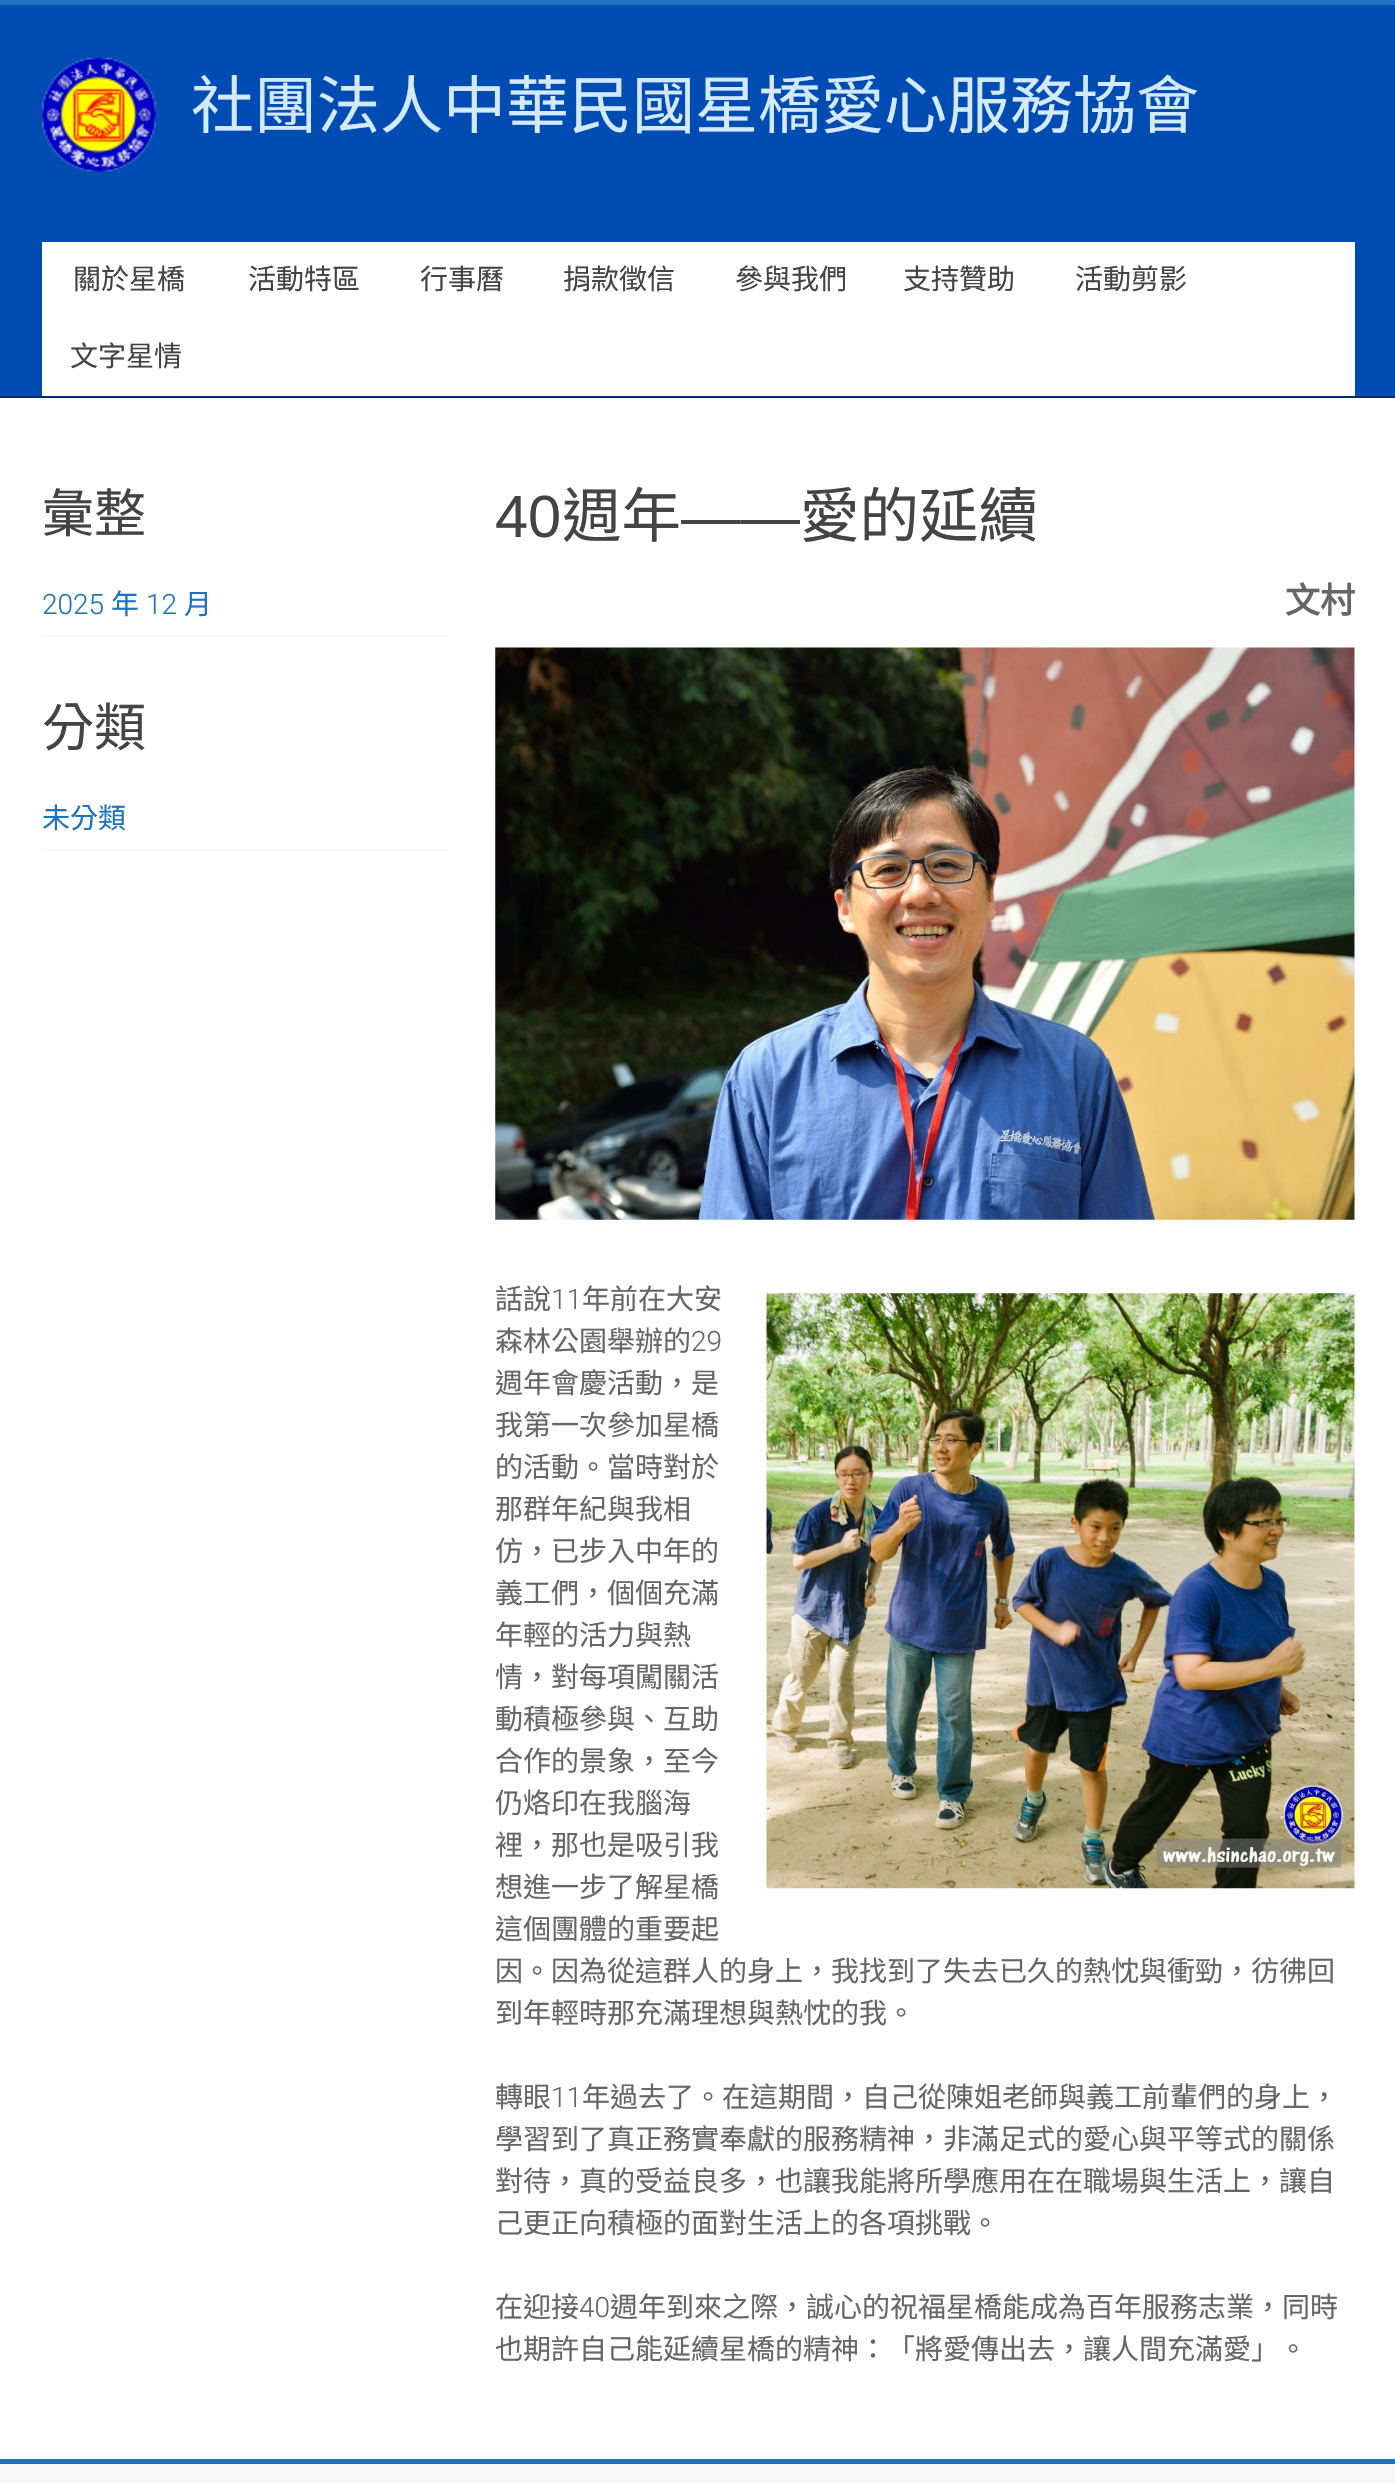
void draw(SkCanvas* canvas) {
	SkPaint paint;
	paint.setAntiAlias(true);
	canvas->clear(0xffffffff);
	paint.setColor(0xff1e73be);
	canvas->drawRect(SkRect::MakeXYWH(0, 0, 1395, 5), paint);
	paint.setColor(0xff004cb2);
	canvas->drawRect(SkRect::MakeXYWH(0, 5, 1395, 391), paint);
	paint.setColor(0xff082971);
	canvas->drawRect(SkRect::MakeXYWH(0, 396, 1395, 2), paint);
	canvas->drawImageRect(SkImages::DeferredFromEncodedData(SkData::MakeFromFileName("img1.png")), SkRect::MakeXYWH(42, 57, 114, 115), SkSamplingOptions());
	SkFont f1(fontMgr->matchFamilyStyle("Noto Sans CJK TC", SkFontStyle::Normal()), 63);
	f1.setSubpixel(true);
	paint.setColor(0xffd2e9ff);
	canvas->drawString("社團法人中華民國星橋愛心服務協會", 191, 128, f1, paint);
	paint.setColor(0xffffffff);
	canvas->drawRect(SkRect::MakeXYWH(42, 242, 1313, 154), paint);
	SkFont f2(fontMgr->matchFamilyStyle("Noto Sans CJK TC", SkFontStyle::Normal()), 28);
	f2.setSubpixel(true);
	paint.setColor(0xff444444);
	canvas->drawString("關於星橋", 73, 289, f2, paint);
	canvas->drawString("活動特區", 248, 289, f2, paint);
	canvas->drawString("行事曆", 420, 289, f2, paint);
	canvas->drawString("捐款徵信", 563, 289, f2, paint);
	canvas->drawString("參與我們", 735, 289, f2, paint);
	canvas->drawString("支持贊助", 903, 289, f2, paint);
	canvas->drawString("活動剪影", 1075, 289, f2, paint);
	canvas->drawString("文字星情", 70, 366, f2, paint);
	SkFont f3(fontMgr->matchFamilyStyle("Noto Sans CJK TC", SkFontStyle::Normal()), 52);
	f3.setSubpixel(true);
	canvas->drawString("彙整", 42, 532, f3, paint);
	paint.setColor(0xfff8f8f8);
	canvas->drawRect(SkRect::MakeXYWH(42, 635, 406, 2), paint);
	SkFont f4(fontMgr->matchFamilyStyle("Roboto", SkFontStyle(300, SkFontStyle::kNormal_Width, SkFontStyle::kUpright_Slant)), 28);
	f4.setSubpixel(true);
	paint.setColor(0xff1e73be);
	canvas->drawString("2025", 42, 614, f4, paint);
	canvas->drawString("年", 111, 614, f2, paint);
	canvas->drawString("12", 146, 614, f4, paint);
	canvas->drawString("月", 184, 614, f2, paint);
	paint.setColor(0xff444444);
	canvas->drawString("分類", 42, 746, f3, paint);
	paint.setColor(0xfff8f8f8);
	canvas->drawRect(SkRect::MakeXYWH(42, 849, 406, 2), paint);
	paint.setColor(0xff1e73be);
	canvas->drawString("未分類", 42, 828, f2, paint);
	SkFont f5(fontMgr->matchFamilyStyle("Liberation Sans", SkFontStyle::Normal()), 59.5);
	f5.setSubpixel(true);
	paint.setColor(0xff444444);
	canvas->drawString("40", 495, 537, f5, paint);
	SkFont f6(fontMgr->matchFamilyStyle("Noto Sans CJK TC", SkFontStyle::Normal()), 59.5);
	f6.setSubpixel(true);
	canvas->drawString("週年", 562, 537, f6, paint);
	canvas->drawString("——", 681, 537, f5, paint);
	canvas->drawString("愛的延續", 800, 537, f6, paint);
	SkFont f7(fontMgr->matchFamilyStyle("Noto Sans CJK TC", SkFontStyle::Bold()), 35);
	f7.setSubpixel(true);
	paint.setColor(0xff666666);
	canvas->drawString("文村", 1285, 613, f7, paint);
	canvas->drawImageRect(SkImages::DeferredFromEncodedData(SkData::MakeFromFileName("img2.png")), SkRect::MakeXYWH(495, 647, 860, 573), SkSamplingOptions());
	canvas->drawString("話說", 495, 1309, f2, paint);
	canvas->drawString("11", 551, 1309, f4, paint);
	canvas->drawString("年前在大安", 582, 1309, f2, paint);
	canvas->drawString("森林公園舉辦的", 495, 1351, f2, paint);
	canvas->drawString("29", 691, 1351, f4, paint);
	canvas->drawString("週年會慶活動，是", 495, 1393, f2, paint);
	canvas->drawString("我第一次參加星橋", 495, 1435, f2, paint);
	canvas->drawString("的活動。當時對於", 495, 1477, f2, paint);
	canvas->drawString("那群年紀與我相", 495, 1519, f2, paint);
	canvas->drawString("仿，已步入中年的", 495, 1561, f2, paint);
	canvas->drawString("義工們，個個充滿", 495, 1603, f2, paint);
	canvas->drawString("年輕的活力與熱", 495, 1645, f2, paint);
	canvas->drawString("情，對每項闖關活", 495, 1687, f2, paint);
	canvas->drawString("動積極參與、互助", 495, 1729, f2, paint);
	canvas->drawString("合作的景象，至今", 495, 1771, f2, paint);
	canvas->drawString("仍烙印在我腦海", 495, 1813, f2, paint);
	canvas->drawString("裡，那也是吸引我", 495, 1855, f2, paint);
	canvas->drawString("想進一步了解星橋", 495, 1897, f2, paint);
	canvas->drawString("這個團體的重要起", 495, 1939, f2, paint);
	canvas->drawString("因。因為從這群人的身上，我找到了失去已久的熱忱與衝勁，彷彿回", 495, 1981, f2, paint);
	canvas->drawString("到年輕時那充滿理想與熱忱的我。", 495, 2023, f2, paint);
	canvas->drawString("轉眼", 495, 2107, f2, paint);
	canvas->drawString("11", 551, 2107, f4, paint);
	canvas->drawString("年過去了。在這期間，自己從陳姐老師與義工前輩們的身上，", 582, 2107, f2, paint);
	canvas->drawString("學習到了真正務實奉獻的服務精神，非滿足式的愛心與平等式的關係", 495, 2149, f2, paint);
	canvas->drawString("對待，真的受益良多，也讓我能將所學應用在在職場與生活上，讓自", 495, 2191, f2, paint);
	canvas->drawString("己更正向積極的面對生活上的各項挑戰。", 495, 2233, f2, paint);
	canvas->drawString("在迎接", 495, 2317, f2, paint);
	canvas->drawString("40", 579, 2317, f4, paint);
	canvas->drawString("週年到來之際，誠心的祝福星橋能成為百年服務志業，同時", 610, 2317, f2, paint);
	canvas->drawString("也期許自己能延續星橋的精神：「將愛傳出去，讓人間充滿愛」。", 495, 2359, f2, paint);
	canvas->drawImageRect(SkImages::DeferredFromEncodedData(SkData::MakeFromFileName("img3.png")), SkRect::MakeXYWH(766, 1293, 589, 596), SkSamplingOptions());
	paint.setColor(0xfff8f8f8);
	canvas->drawRect(SkRect::MakeXYWH(0, 2464, 1395, 19), paint);
	paint.setColor(0xff1e73be);
	canvas->drawRect(SkRect::MakeXYWH(0, 2459, 1395, 5), paint);
}
